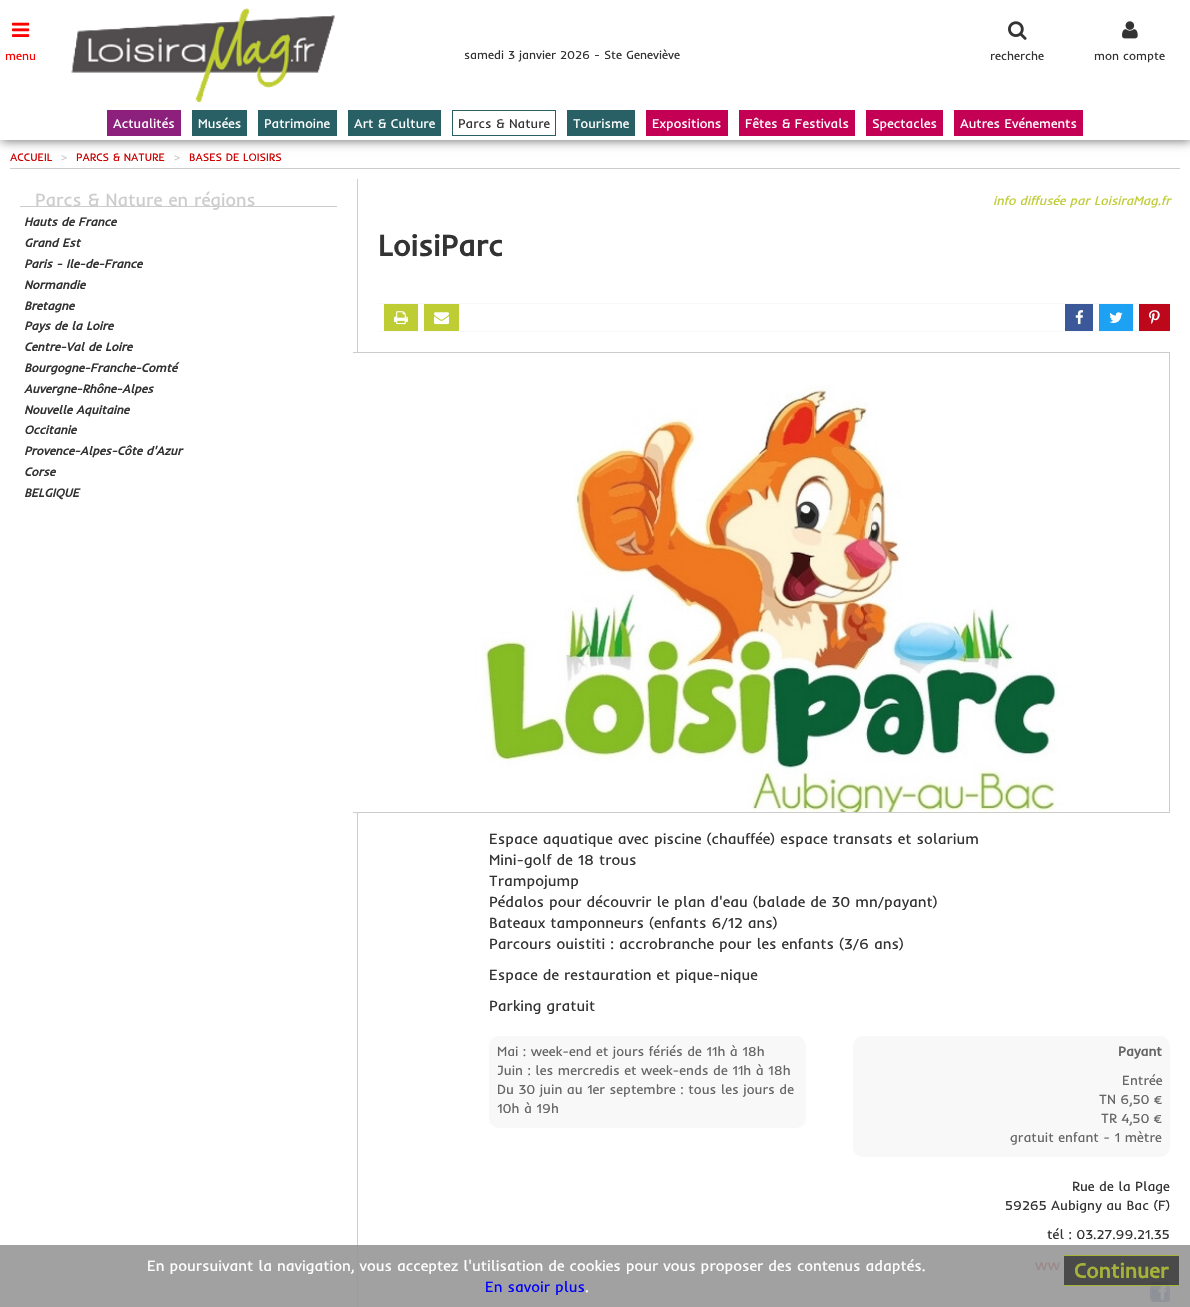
void draw(SkCanvas* canvas) {
	SkPaint paint;
	paint.setAntiAlias(true);
	canvas->clear(0xffffffff);
	paint.setColor(0xff777777);
	paint.setMaskFilter(SkMaskFilter::MakeBlur(kNormal_SkBlurStyle, 5));
	canvas->drawRect(SkRect::MakeXYWH(1, 1, 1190, 140), paint);
	paint.setMaskFilter(nullptr);
	paint.setColor(0xffffffff);
	canvas->drawRect(SkRect::MakeXYWH(0, 0, 1190, 140), paint);
	canvas->drawImageRect(SkImages::DeferredFromEncodedData(SkData::MakeFromFileName("img1.png")), SkRect::MakeXYWH(12, 22, 18, 15), SkSamplingOptions());
	SkFont f1(fontMgr->matchFamilyStyle("Inder", SkFontStyle::Normal()), 12);
	f1.setSubpixel(true);
	paint.setColor(0xffff0000);
	canvas->drawString("menu", 5, 60, f1, paint);
	canvas->drawImageRect(SkImages::DeferredFromEncodedData(SkData::MakeFromFileName("img2.png")), SkRect::MakeXYWH(71, 8, 264, 94), SkSamplingOptions());
	paint.setColor(0xff333333);
	canvas->drawString("samedi 3 janvier 2026 - Ste Geneviève", 464, 59, f1, paint);
	canvas->drawImageRect(SkImages::DeferredFromEncodedData(SkData::MakeFromFileName("img3.png")), SkRect::MakeXYWH(1008, 21, 19, 19), SkSamplingOptions());
	canvas->drawString("recherche", 990, 60, f1, paint);
	canvas->drawImageRect(SkImages::DeferredFromEncodedData(SkData::MakeFromFileName("img4.png")), SkRect::MakeXYWH(1122, 21, 16, 18), SkSamplingOptions());
	canvas->drawString("mon compte", 1094, 60, f1, paint);
	paint.setColor(0xff8d207c);
	canvas->drawRect(SkRect::MakeXYWH(107, 110, 74, 26), paint);
	SkFont f2(fontMgr->matchFamilyStyle("Inder", SkFontStyle::Normal()), 13);
	f2.setSubpixel(true);
	paint.setColor(0xffffffff);
	canvas->drawString("Actualités", 113, 128, f2, paint);
	paint.setColor(0xff286065);
	canvas->drawRect(SkRect::MakeXYWH(192, 110, 55, 26), paint);
	paint.setColor(0xffffffff);
	canvas->drawString("Musées", 198, 128, f2, paint);
	paint.setColor(0xff286065);
	canvas->drawRect(SkRect::MakeXYWH(258, 110, 79, 26), paint);
	paint.setColor(0xffffffff);
	canvas->drawString("Patrimoine", 264, 128, f2, paint);
	paint.setColor(0xff286065);
	canvas->drawRect(SkRect::MakeXYWH(348, 110, 93, 26), paint);
	paint.setColor(0xffffffff);
	canvas->drawString("Art & Culture", 354, 128, f2, paint);
	paint.setStroke(true);
	paint.setStrokeWidth(1);
	paint.setColor(0xff286065);
	canvas->drawRect(SkRect::MakeXYWH(452.5, 110.5, 103, 25), paint);
	paint.setStroke(false);
	paint.setColor(0xff333333);
	canvas->drawString("Parcs & Nature", 458, 128, f2, paint);
	paint.setColor(0xff286065);
	canvas->drawRect(SkRect::MakeXYWH(567, 110, 68, 26), paint);
	paint.setColor(0xffffffff);
	canvas->drawString("Tourisme", 573, 128, f2, paint);
	paint.setColor(0xffc40054);
	canvas->drawRect(SkRect::MakeXYWH(646, 110, 82, 26), paint);
	paint.setColor(0xffffffff);
	canvas->drawString("Expositions", 652, 128, f2, paint);
	paint.setColor(0xffc40054);
	canvas->drawRect(SkRect::MakeXYWH(739, 110, 116, 26), paint);
	paint.setColor(0xffffffff);
	canvas->drawString("Fêtes & Festivals", 745, 128, f2, paint);
	paint.setColor(0xffc40054);
	canvas->drawRect(SkRect::MakeXYWH(866, 110, 77, 26), paint);
	paint.setColor(0xffffffff);
	canvas->drawString("Spectacles", 872, 128, f2, paint);
	paint.setColor(0xffc40054);
	canvas->drawRect(SkRect::MakeXYWH(954, 110, 129, 26), paint);
	paint.setColor(0xffffffff);
	canvas->drawString("Autres Evénements", 960, 128, f2, paint);
	paint.setColor(0xffa1a1a1);
	canvas->drawRect(SkRect::MakeXYWH(0, 1245, 1190, 62), paint);
	paint.setColor(0xffcccccc);
	canvas->drawRect(SkRect::MakeXYWH(10, 168, 1170, 1), paint);
	SkFont f3(fontMgr->matchFamilyStyle("Inder", SkFontStyle::Normal()), 11);
	f3.setSubpixel(true);
	paint.setColor(0xffcc0000);
	canvas->drawString("ACCUEIL", 10, 161, f3, paint);
	paint.setColor(0xffcccccc);
	canvas->drawString(">", 61, 161, f3, paint);
	paint.setColor(0xffcc0000);
	canvas->drawString("PARCS & NATURE", 76, 161, f3, paint);
	paint.setColor(0xffcccccc);
	canvas->drawString(">", 174, 161, f3, paint);
	paint.setColor(0xffcc0000);
	canvas->drawString("BASES DE LOISIRS", 189, 161, f3, paint);
	paint.setColor(0xffcccccc);
	canvas->drawRect(SkRect::MakeXYWH(20, 206, 317, 1), paint);
	SkFont f4(fontMgr->matchFamilyStyle("Inder", SkFontStyle::Normal()), 18);
	f4.setSubpixel(true);
	canvas->drawString("Parcs & Nature en régions", 35, 206, f4, paint);
	SkFont f5(fontMgr->matchFamilyStyle("Inder", SkFontStyle::BoldItalic()), 12);
	f5.setSubpixel(true);
	paint.setColor(0xff333333);
	canvas->drawString("Hauts de France", 24, 226, f5, paint);
	canvas->drawString("Grand Est", 24, 247, f5, paint);
	canvas->drawString("Paris - Ile-de-France", 24, 268, f5, paint);
	canvas->drawString("Normandie", 24, 289, f5, paint);
	canvas->drawString("Bretagne", 24, 310, f5, paint);
	canvas->drawString("Pays de la Loire", 24, 330, f5, paint);
	canvas->drawString("Centre-Val de Loire", 24, 351, f5, paint);
	canvas->drawString("Bourgogne-Franche-Comté", 24, 372, f5, paint);
	canvas->drawString("Auvergne-Rhône-Alpes", 24, 393, f5, paint);
	canvas->drawString("Nouvelle Aquitaine", 24, 414, f5, paint);
	canvas->drawString("Occitanie", 24, 434, f5, paint);
	canvas->drawString("Provence-Alpes-Côte d'Azur", 24, 455, f5, paint);
	canvas->drawString("Corse", 24, 476, f5, paint);
	canvas->drawString("BELGIQUE", 24, 497, f5, paint);
	paint.setColor(0xffcccccc);
	canvas->drawRect(SkRect::MakeXYWH(357, 179, 1, 1066), paint);
	paint.setColor(0xff9c9c9c);
	canvas->drawRect(SkRect::MakeXYWH(357, 1245, 1, 62), paint);
	SkFont f6(fontMgr->matchFamilyStyle("Inder", SkFontStyle::Italic()), 12.75);
	f6.setSubpixel(true);
	paint.setColor(0xffbfcd35);
	canvas->drawString("info diffusée par LoisiraMag.fr", 993, 205, f6, paint);
	SkFont f7(fontMgr->matchFamilyStyle("Inder", SkFontStyle::Bold()), 30);
	f7.setSubpixel(true);
	paint.setColor(0xff333333);
	canvas->drawString("LoisiParc", 378, 256, f7, paint);
	paint.setColor(0xfff8f8f8);
	canvas->drawRect(SkRect::MakeXYWH(378, 303, 792, 1), paint);
	canvas->drawRect(SkRect::MakeXYWH(378, 331, 792, 1), paint);
	paint.setColor(0xffbfcd35);
	canvas->drawRect(SkRect::MakeXYWH(384, 304, 34, 27), paint);
	canvas->drawImageRect(SkImages::DeferredFromEncodedData(SkData::MakeFromFileName("img5.png")), SkRect::MakeXYWH(394, 311, 14, 14), SkSamplingOptions());
	canvas->drawRect(SkRect::MakeXYWH(424, 304, 35, 27), paint);
	canvas->drawImageRect(SkImages::DeferredFromEncodedData(SkData::MakeFromFileName("img6.png")), SkRect::MakeXYWH(434, 312, 15, 13), SkSamplingOptions());
	paint.setColor(0xff3b5998);
	canvas->drawRect(SkRect::MakeXYWH(1065, 304, 28, 27), paint);
	canvas->drawImageRect(SkImages::DeferredFromEncodedData(SkData::MakeFromFileName("img7.png")), SkRect::MakeXYWH(1075, 310, 9, 15), SkSamplingOptions());
	paint.setColor(0xff1da1f2);
	canvas->drawRect(SkRect::MakeXYWH(1099, 304, 34, 27), paint);
	canvas->drawImageRect(SkImages::DeferredFromEncodedData(SkData::MakeFromFileName("img8.png")), SkRect::MakeXYWH(1109, 312, 14, 11), SkSamplingOptions());
	paint.setColor(0xffbd081c);
	canvas->drawRect(SkRect::MakeXYWH(1139, 304, 31, 27), paint);
	canvas->drawImageRect(SkImages::DeferredFromEncodedData(SkData::MakeFromFileName("img9.png")), SkRect::MakeXYWH(1149, 310, 11, 14), SkSamplingOptions());
	paint.setColor(0xffcccccc);
	canvas->drawRect(SkRect::MakeXYWH(353, 352, 817, 1), paint);
	canvas->drawRect(SkRect::MakeXYWH(1169, 352, 1, 461), paint);
	canvas->drawRect(SkRect::MakeXYWH(353, 812, 817, 1), paint);
	canvas->drawImageRect(SkImages::DeferredFromEncodedData(SkData::MakeFromFileName("img10.png")), SkRect::MakeXYWH(353, 353, 816, 459), SkSamplingOptions());
	SkFont f8(fontMgr->matchFamilyStyle("Inder", SkFontStyle::Normal()), 15);
	f8.setSubpixel(true);
	paint.setColor(0xff333333);
	canvas->drawString("Espace aquatique avec piscine (chauffée) espace transats et solarium", 489, 844, f8, paint);
	canvas->drawString("Mini-golf de 18 trous", 489, 865, f8, paint);
	canvas->drawString("Trampojump", 489, 886, f8, paint);
	canvas->drawString("Pédalos pour découvrir le plan d'eau (balade de 30 mn/payant)", 489, 907, f8, paint);
	canvas->drawString("Bateaux tamponneurs (enfants 6/12 ans)", 489, 928, f8, paint);
	canvas->drawString("Parcours ouistiti : accrobranche pour les enfants (3/6 ans)", 489, 949, f8, paint);
	canvas->drawString("Espace de restauration et pique-nique", 489, 980, f8, paint);
	canvas->drawString("Parking gratuit", 489, 1011, f8, paint);
	paint.setColor(0xfff8f8f8);
	canvas->drawRoundRect(SkRect::MakeXYWH(489, 1036, 317, 92), 10, 10, paint);
	SkFont f9(fontMgr->matchFamilyStyle("Inder", SkFontStyle::Normal()), 13.5);
	f9.setSubpixel(true);
	paint.setColor(0xff666666);
	canvas->drawString("Mai : week-end et jours fériés de 11h à 18h", 497, 1056, f9, paint);
	canvas->drawString("Juin : les mercredis et week-ends de 11h à 18h", 497, 1075, f9, paint);
	canvas->drawString("Du 30 juin au 1er septembre : tous les jours de", 497, 1094, f9, paint);
	canvas->drawString("10h à 19h", 497, 1113, f9, paint);
	paint.setColor(0xfff8f8f8);
	canvas->drawRoundRect(SkRect::MakeXYWH(853, 1036, 317, 121), 10, 10, paint);
	SkFont f10(fontMgr->matchFamilyStyle("Inder", SkFontStyle::Bold()), 13.5);
	f10.setSubpixel(true);
	paint.setColor(0xff666666);
	canvas->drawString("Payant", 1118, 1056, f10, paint);
	canvas->drawString("Entrée", 1122, 1085, f9, paint);
	canvas->drawString("TN 6,50 €", 1099, 1104, f9, paint);
	canvas->drawString("TR 4,50 €", 1101, 1123, f9, paint);
	canvas->drawString("gratuit enfant - 1 mètre", 1010, 1142, f9, paint);
	paint.setColor(0xff333333);
	canvas->drawString("Rue de la Plage", 1072, 1191, f9, paint);
	canvas->drawString("59265 Aubigny au Bac (F)", 1005, 1210, f9, paint);
	canvas->drawString("tél : 03.27.99.21.35", 1047, 1239, f9, paint);
	paint.setColor(0xff9c8888);
	canvas->drawString("ww", 1035, 1270, f8, paint);
	canvas->drawImageRect(SkImages::DeferredFromEncodedData(SkData::MakeFromFileName("img11.png")), SkRect::MakeXYWH(1150, 1282, 20, 20), SkSamplingOptions());
	paint.setColor(0xffffffff);
	canvas->drawString("En poursuivant la navigation, vous acceptez l'utilisation de cookies pour vous proposer des contenus adaptés.", 147, 1271, f8, paint);
	paint.setColor(0xcc333333);
	canvas->drawRect(SkRect::MakeXYWH(1063, 1255, 117, 31), paint);
	paint.setStroke(true);
	paint.setColor(0xccbfcd35);
	canvas->drawRect(SkRect::MakeXYWH(1063.5, 1255.5, 116, 30), paint);
	SkFont f11(fontMgr->matchFamilyStyle("Inder", SkFontStyle::Bold()), 21);
	f11.setSubpixel(true);
	paint.setStroke(false);
	paint.setColor(0xffa7b239);
	canvas->drawString("Continuer", 1074, 1278, f11, paint);
	paint.setColor(0xff0000ff);
	canvas->drawString("En savoir plus", 485, 1292, f8, paint);
	paint.setColor(0xffffffff);
	canvas->drawString(".", 585, 1292, f8, paint);
}
